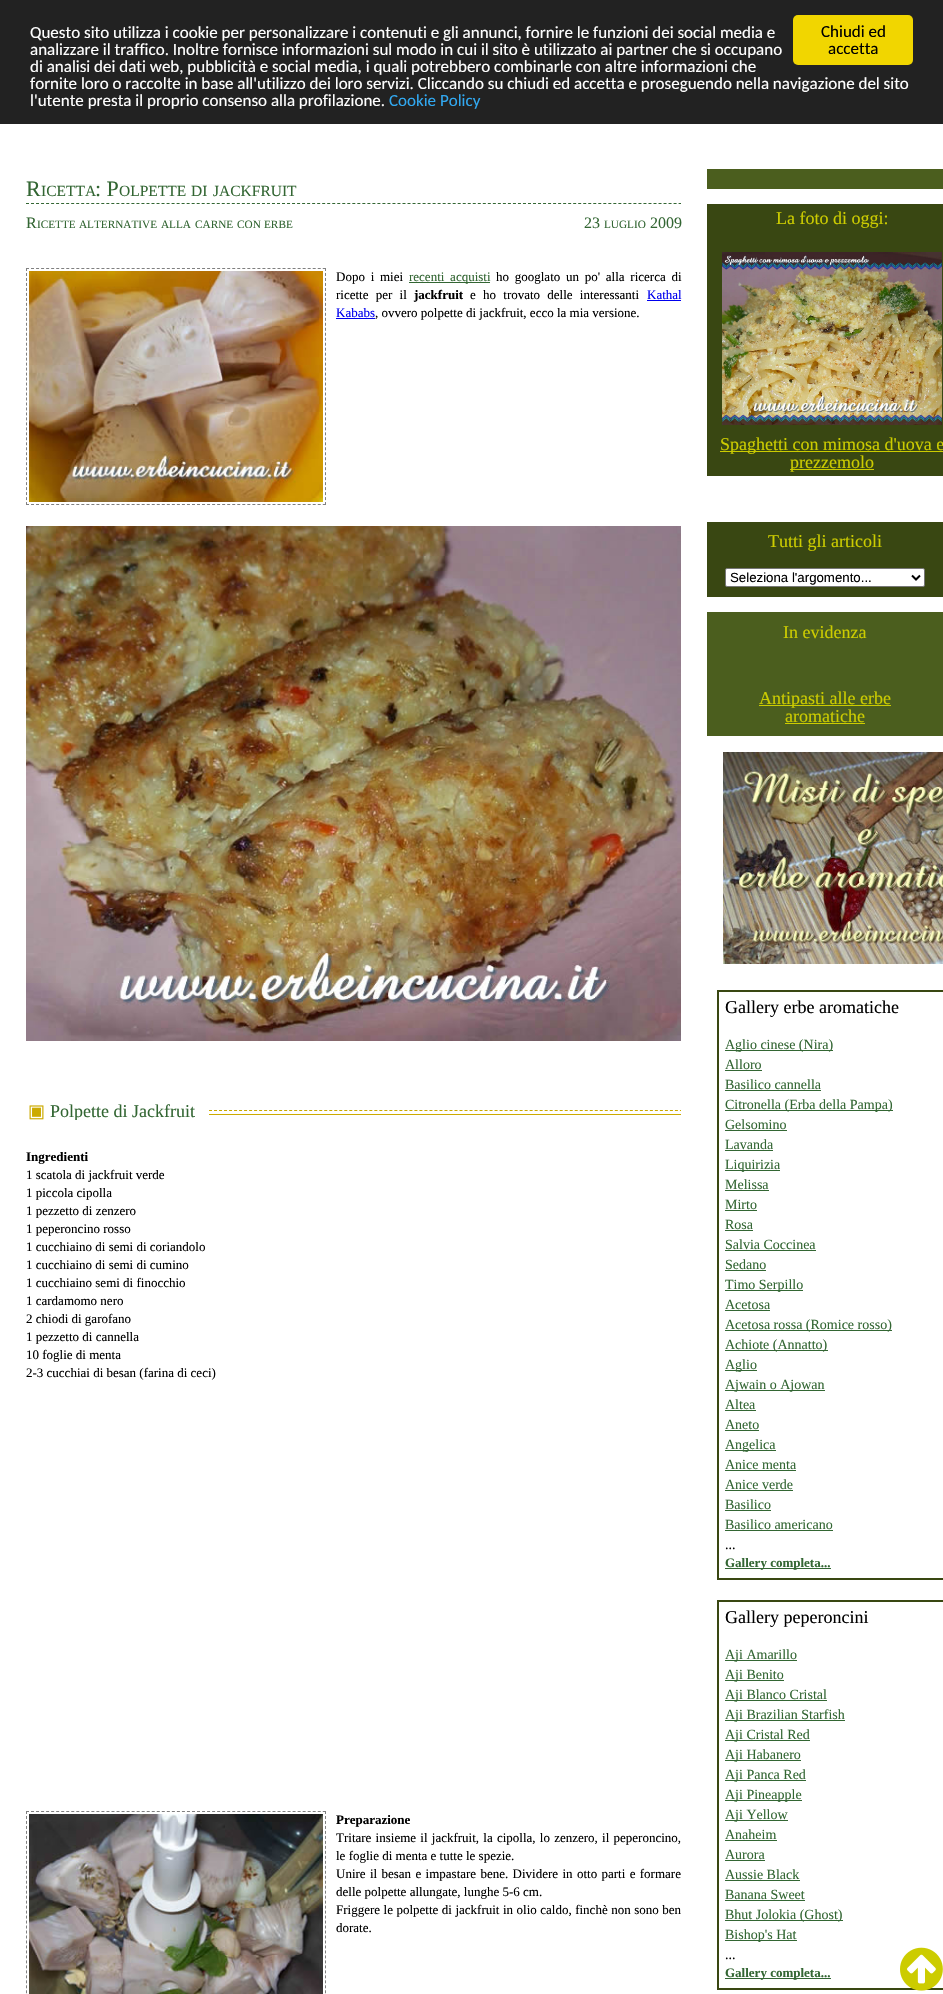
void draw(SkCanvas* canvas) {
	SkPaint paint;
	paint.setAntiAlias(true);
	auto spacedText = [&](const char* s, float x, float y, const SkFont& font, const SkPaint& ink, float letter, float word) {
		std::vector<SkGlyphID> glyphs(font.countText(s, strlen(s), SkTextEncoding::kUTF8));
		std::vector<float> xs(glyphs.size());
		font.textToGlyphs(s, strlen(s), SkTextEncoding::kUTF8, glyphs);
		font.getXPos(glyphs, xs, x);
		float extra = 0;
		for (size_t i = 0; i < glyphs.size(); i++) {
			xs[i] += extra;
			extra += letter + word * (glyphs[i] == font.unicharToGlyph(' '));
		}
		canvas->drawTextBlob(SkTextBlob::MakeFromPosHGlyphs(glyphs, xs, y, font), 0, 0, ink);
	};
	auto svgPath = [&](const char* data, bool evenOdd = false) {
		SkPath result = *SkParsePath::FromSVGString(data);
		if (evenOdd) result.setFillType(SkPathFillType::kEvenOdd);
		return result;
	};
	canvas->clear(0xffffffff);
	paint.setColor(0xff222222);
	canvas->drawRect(SkRect::MakeXYWH(0, 0, 943, 124), paint);
	paint.setColor(0xfff1d600);
	canvas->drawRoundRect(SkRect::MakeXYWH(793, 15, 120, 50), 5, 5, paint);
	SkFont f1(fontMgr->matchFamilyStyle("Carlito", SkFontStyle::Normal()), 17);
	f1.setSubpixel(true);
	paint.setColor(0xff000000);
	canvas->drawString("Chiudi ed", 821, 37, f1, paint);
	canvas->drawString("accetta", 828, 54, f1, paint);
	paint.setColor(0xffffffff);
	canvas->drawString("Questo sito utilizza i cookie per personalizzare i contenuti e gli annunci, fornire le funzioni dei social media e", 30, 38, f1, paint);
	canvas->drawString("analizzare il traffico. Inoltre fornisce informazioni sul modo in cui il sito è utilizzato ai partner che si occupano", 30, 55, f1, paint);
	canvas->drawString("di analisi dei dati web, pubblicità e social media, i quali potrebbero combinarle con altre informazioni che", 30, 72, f1, paint);
	canvas->drawString("fornite loro o raccolte in base all'utilizzo dei loro servizi. Cliccando su chiudi ed accetta e proseguendo nella navigazione del sito", 30, 89, f1, paint);
	canvas->drawString("l'utente presta il proprio consenso alla profilazione.", 30, 106, f1, paint);
	paint.setColor(0xff31a8f0);
	canvas->drawString("Cookie Policy", 389, 106, f1, paint);
	paint.setStroke(true);
	paint.setStrokeWidth(1);
	paint.setColor(0xff336633);
	paint.setPathEffect(SkDashPathEffect::Make({{3, 2.02f}}, 0));
	canvas->drawPath(svgPath("M26 203.5H681"), paint);
	paint.setPathEffect(nullptr);
	SkFont f2(fontMgr->matchFamilyStyle("Liberation Serif", SkFontStyle::Normal()), 22);
	f2.setSubpixel(true);
	paint.setStroke(false);
	canvas->drawString("R", 26, 196, f2, paint);
	SkFont f3(fontMgr->matchFamilyStyle("Liberation Serif", SkFontStyle::Normal()), 15.5);
	f3.setSubpixel(true);
	canvas->drawString("ICETTA", 41, 196, f3, paint);
	canvas->drawString(": P", 95, 196, f2, paint);
	canvas->drawString("OLPETTE", 119, 196, f3, paint);
	canvas->drawString("DI", 191, 196, f3, paint);
	canvas->drawString("JACKFRUIT", 213, 196, f3, paint);
	SkFont f4(fontMgr->matchFamilyStyle("Liberation Serif", SkFontStyle::Normal()), 16);
	f4.setSubpixel(true);
	canvas->drawString("R", 26, 228, f4, paint);
	SkFont f5(fontMgr->matchFamilyStyle("Liberation Serif", SkFontStyle::Normal()), 11.25);
	f5.setSubpixel(true);
	canvas->drawString("ICETTE", 37, 228, f5, paint);
	canvas->drawString("ALTERNATIVE", 79, 228, f5, paint);
	canvas->drawString("ALLA", 161, 228, f5, paint);
	canvas->drawString("CARNE", 195, 228, f5, paint);
	canvas->drawString("CON", 237, 228, f5, paint);
	canvas->drawString("ERBE", 264, 228, f5, paint);
	canvas->drawString("23", 584, 228, f4, paint);
	canvas->drawString("LUGLIO", 604, 228, f5, paint);
	canvas->drawString("2009", 650, 228, f4, paint);
	paint.setStroke(true);
	paint.setColor(0xff808080);
	paint.setPathEffect(SkDashPathEffect::Make({{3, 2.03f}}, 0));
	canvas->drawPath(svgPath("M26 268.5H326"), paint);
	paint.setPathEffect(nullptr);
	paint.setPathEffect(SkDashPathEffect::Make({{3, 1.98f}}, 0));
	canvas->drawPath(svgPath("M325.5 268V505"), paint);
	paint.setPathEffect(nullptr);
	paint.setPathEffect(SkDashPathEffect::Make({{3, 2.03f}}, 0));
	canvas->drawPath(svgPath("M26 504.5H326"), paint);
	paint.setPathEffect(nullptr);
	paint.setPathEffect(SkDashPathEffect::Make({{3, 1.98f}}, 0));
	canvas->drawPath(svgPath("M26.5 268V505"), paint);
	paint.setPathEffect(nullptr);
	canvas->drawImageRect(SkImages::DeferredFromEncodedData(SkData::MakeFromFileName("img1.png")), SkRect::MakeXYWH(29, 271, 294, 231), SkSamplingOptions());
	SkFont f6(fontMgr->matchFamilyStyle("Liberation Serif", SkFontStyle::Normal()), 13);
	f6.setSubpixel(true);
	paint.setStroke(false);
	paint.setColor(0xff000000);
	spacedText("Dopo i miei", 336, 281, f6, paint, 0, 2.5);
	paint.setColor(0xff336633);
	canvas->drawRect(SkRect::MakeXYWH(409, 282, 81, 1), paint);
	spacedText("recenti acquisti", 409, 281, f6, paint, 0, 2.5);
	paint.setColor(0xff000000);
	spacedText("ho googlato un po' alla ricerca di", 496, 281, f6, paint, 0, 2.5);
	spacedText("ricette per il", 336, 299, f6, paint, 0, 4);
	SkFont f7(fontMgr->matchFamilyStyle("Liberation Serif", SkFontStyle::Bold()), 13);
	f7.setSubpixel(true);
	canvas->drawString("jackfruit", 414, 299, f7, paint);
	spacedText("e ho trovato delle interessanti", 470, 299, f6, paint, 0, 4);
	paint.setColor(0xff0000ee);
	canvas->drawString("Kathal", 647, 299, f6, paint);
	canvas->drawRect(SkRect::MakeXYWH(647, 300, 34, 1), paint);
	canvas->drawString("Kababs", 336, 317, f6, paint);
	canvas->drawRect(SkRect::MakeXYWH(336, 318, 39, 1), paint);
	paint.setColor(0xff000000);
	canvas->drawString(", ovvero polpette di jackfruit, ecco la mia versione.", 375, 317, f6, paint);
	canvas->drawImageRect(SkImages::DeferredFromEncodedData(SkData::MakeFromFileName("img2.png")), SkRect::MakeXYWH(26, 526, 655, 515), SkSamplingOptions());
	SkFont f8(fontMgr->matchFamilyStyle("DejaVu Sans", SkFontStyle::Normal()), 18);
	f8.setSubpixel(true);
	paint.setColor(0xffccaa00);
	canvas->drawString("▣", 28, 1117, f8, paint);
	canvas->save();
	canvas->clipRect(SkRect::MakeXYWH(28, 1102, 653, 18));
	SkFont f9(fontMgr->matchFamilyStyle("Liberation Serif", SkFontStyle::Normal()), 18);
	f9.setSubpixel(true);
	paint.setColor(0xff336633);
	canvas->drawString("Polpette di Jackfruit", 50, 1117, f9, paint);
	paint.setStroke(true);
	paint.setColor(0xffccaa00);
	paint.setPathEffect(SkDashPathEffect::Make({{3, 2.01f}}, 0));
	canvas->drawPath(svgPath("M209 1110.5H863"), paint);
	paint.setPathEffect(nullptr);
	canvas->restore();
	paint.setStroke(false);
	canvas->drawRect(SkRect::MakeXYWH(209, 1114, 472, 1), paint);
	paint.setColor(0xff000000);
	canvas->drawString("Ingredienti", 26, 1161, f7, paint);
	canvas->drawString("1 scatola di jackfruit verde", 26, 1179, f6, paint);
	canvas->drawString("1 piccola cipolla", 26, 1197, f6, paint);
	canvas->drawString("1 pezzetto di zenzero", 26, 1215, f6, paint);
	canvas->drawString("1 peperoncino rosso", 26, 1233, f6, paint);
	canvas->drawString("1 cucchiaino di semi di coriandolo", 26, 1251, f6, paint);
	canvas->drawString("1 cucchiaino di semi di cumino", 26, 1269, f6, paint);
	canvas->drawString("1 cucchiaino semi di finocchio", 26, 1287, f6, paint);
	canvas->drawString("1 cardamomo nero", 26, 1305, f6, paint);
	canvas->drawString("2 chiodi di garofano", 26, 1323, f6, paint);
	canvas->drawString("1 pezzetto di cannella", 26, 1341, f6, paint);
	canvas->drawString("10 foglie di menta", 26, 1359, f6, paint);
	canvas->drawString("2-3 cucchiai di besan (farina di ceci)", 26, 1377, f6, paint);
	paint.setStroke(true);
	paint.setColor(0xff808080);
	paint.setPathEffect(SkDashPathEffect::Make({{3, 2.03f}}, 0));
	canvas->drawPath(svgPath("M26 1811.5H326"), paint);
	paint.setPathEffect(nullptr);
	paint.setPathEffect(SkDashPathEffect::Make({{3, 1.98f}}, 0));
	canvas->drawPath(svgPath("M325.5 1811V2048"), paint);
	paint.setPathEffect(nullptr);
	paint.setPathEffect(SkDashPathEffect::Make({{3, 1.98f}}, 0));
	canvas->drawPath(svgPath("M26.5 1811V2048"), paint);
	paint.setPathEffect(nullptr);
	canvas->drawImageRect(SkImages::DeferredFromEncodedData(SkData::MakeFromFileName("img3.png")), SkRect::MakeXYWH(29, 1814, 294, 180), SkSamplingOptions());
	paint.setStroke(false);
	paint.setColor(0xff000000);
	canvas->drawString("Preparazione", 336, 1824, f7, paint);
	spacedText("Tritare insieme il jackfruit, la cipolla, lo zenzero, il peperoncino,", 336, 1842, f6, paint, 0, 1);
	canvas->drawString("le foglie di menta e tutte le spezie.", 336, 1860, f6, paint);
	spacedText("Unire il besan e impastare bene. Dividere in otto parti e formare", 336, 1878, f6, paint, 0, 1.1);
	canvas->drawString("delle polpette allungate, lunghe 5-6 cm.", 336, 1896, f6, paint);
	spacedText("Friggere le polpette di jackfruit in olio caldo, finchè non sono ben", 336, 1914, f6, paint, 0, 0.25);
	canvas->drawString("dorate.", 336, 1932, f6, paint);
	paint.setColor(0xff4b5e1e);
	canvas->drawRect(SkRect::MakeXYWH(707, 169, 236, 20), paint);
	paint.setColor(0xff394712);
	canvas->drawRect(SkRect::MakeXYWH(707, 204, 236, 272), paint);
	paint.setColor(0xffcccc00);
	canvas->drawString("La foto di oggi:", 776, 224, f9, paint);
	canvas->drawImageRect(SkImages::DeferredFromEncodedData(SkData::MakeFromFileName("img4.png")), SkRect::MakeXYWH(722, 252, 220, 173), SkSamplingOptions());
	canvas->drawRect(SkRect::MakeXYWH(720, 451, 223, 1), paint);
	canvas->drawString("Spaghetti con mimosa d'uova e", 720, 450, f9, paint);
	canvas->drawRect(SkRect::MakeXYWH(790, 469, 84, 1), paint);
	canvas->drawString("prezzemolo", 790, 468, f9, paint);
	paint.setColor(0xff394712);
	canvas->drawRect(SkRect::MakeXYWH(707, 522, 236, 75), paint);
	paint.setColor(0xffcccc00);
	canvas->drawString("Tutti gli articoli", 768, 547, f9, paint);
	paint.setColor(0xffffffff);
	canvas->drawRoundRect(SkRect::MakeXYWH(725.5, 568.5, 199, 18), 1.5, 1.5, paint);
	paint.setStroke(true);
	paint.setColor(0xff767676);
	canvas->drawRoundRect(SkRect::MakeXYWH(725.5, 568.5, 199, 18), 1.5, 1.5, paint);
	paint.setStrokeWidth(2);
	paint.setColor(0xff000000);
	canvas->drawPath(svgPath("M912 575.5L916 579.5L920 575.5"), paint);
	SkFont f10(fontMgr->matchFamilyStyle("Liberation Sans", SkFontStyle::Normal()), 13.25);
	f10.setSubpixel(true);
	paint.setStroke(false);
	canvas->drawString("Seleziona l'argomento...", 730, 582, f10, paint);
	paint.setColor(0xff4b5e1e);
	canvas->drawRect(SkRect::MakeXYWH(707, 612, 236, 124), paint);
	paint.setColor(0xffcccc00);
	canvas->drawString("In evidenza", 783, 638, f9, paint);
	canvas->drawRect(SkRect::MakeXYWH(759, 705, 132, 1), paint);
	canvas->drawString("Antipasti alle erbe", 759, 704, f9, paint);
	canvas->drawString("aromatiche", 785, 722, f9, paint);
	canvas->drawRect(SkRect::MakeXYWH(785, 723, 80, 1), paint);
	canvas->drawImageRect(SkImages::DeferredFromEncodedData(SkData::MakeFromFileName("img5.png")), SkRect::MakeXYWH(723, 752, 220, 212), SkSamplingOptions());
	paint.setStroke(true);
	paint.setColor(0xff394712);
	canvas->drawRect(SkRect::MakeXYWH(718, 991, 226, 588), paint);
	paint.setStroke(false);
	paint.setColor(0xff000000);
	canvas->drawString("Gallery erbe aromatiche", 725, 1013, f9, paint);
	paint.setColor(0xff336633);
	canvas->drawRect(SkRect::MakeXYWH(725, 1050, 108, 1), paint);
	SkFont f11(fontMgr->matchFamilyStyle("Liberation Serif", SkFontStyle::Normal()), 14);
	f11.setSubpixel(true);
	canvas->drawString("Aglio cinese (Nira)", 725, 1049, f11, paint);
	canvas->drawString("Alloro", 725, 1069, f11, paint);
	canvas->drawRect(SkRect::MakeXYWH(725, 1070, 37, 1), paint);
	canvas->drawString("Basilico cannella", 725, 1089, f11, paint);
	canvas->drawRect(SkRect::MakeXYWH(725, 1090, 96, 1), paint);
	canvas->drawRect(SkRect::MakeXYWH(725, 1110, 168, 1), paint);
	canvas->drawString("Citronella (Erba della Pampa)", 725, 1109, f11, paint);
	canvas->drawString("Gelsomino", 725, 1129, f11, paint);
	canvas->drawRect(SkRect::MakeXYWH(725, 1130, 62, 1), paint);
	canvas->drawString("Lavanda", 725, 1149, f11, paint);
	canvas->drawRect(SkRect::MakeXYWH(725, 1150, 48, 1), paint);
	canvas->drawRect(SkRect::MakeXYWH(725, 1170, 55, 1), paint);
	canvas->drawString("Liquirizia", 725, 1169, f11, paint);
	canvas->drawString("Melissa", 725, 1189, f11, paint);
	canvas->drawRect(SkRect::MakeXYWH(725, 1190, 44, 1), paint);
	canvas->drawString("Mirto", 725, 1209, f11, paint);
	canvas->drawRect(SkRect::MakeXYWH(725, 1210, 32, 1), paint);
	canvas->drawString("Rosa", 725, 1229, f11, paint);
	canvas->drawRect(SkRect::MakeXYWH(725, 1230, 28, 1), paint);
	canvas->drawString("Salvia Coccinea", 725, 1249, f11, paint);
	canvas->drawRect(SkRect::MakeXYWH(725, 1250, 91, 1), paint);
	canvas->drawString("Sedano", 725, 1269, f11, paint);
	canvas->drawRect(SkRect::MakeXYWH(725, 1270, 41, 1), paint);
	canvas->drawRect(SkRect::MakeXYWH(725, 1290, 78, 1), paint);
	canvas->drawString("Timo Serpillo", 725, 1289, f11, paint);
	canvas->drawString("Acetosa", 725, 1309, f11, paint);
	canvas->drawRect(SkRect::MakeXYWH(725, 1310, 45, 1), paint);
	canvas->drawRect(SkRect::MakeXYWH(725, 1330, 167, 1), paint);
	canvas->drawString("Acetosa rossa (Romice rosso)", 725, 1329, f11, paint);
	canvas->drawRect(SkRect::MakeXYWH(725, 1350, 103, 1), paint);
	canvas->drawString("Achiote (Annatto)", 725, 1349, f11, paint);
	canvas->drawRect(SkRect::MakeXYWH(725, 1370, 32, 1), paint);
	canvas->drawString("Aglio", 725, 1369, f11, paint);
	canvas->drawRect(SkRect::MakeXYWH(725, 1390, 100, 1), paint);
	canvas->drawString("Ajwain o Ajowan", 725, 1389, f11, paint);
	canvas->drawString("Altea", 725, 1409, f11, paint);
	canvas->drawRect(SkRect::MakeXYWH(725, 1410, 31, 1), paint);
	canvas->drawString("Aneto", 725, 1429, f11, paint);
	canvas->drawRect(SkRect::MakeXYWH(725, 1430, 34, 1), paint);
	canvas->drawRect(SkRect::MakeXYWH(725, 1450, 51, 1), paint);
	canvas->drawString("Angelica", 725, 1449, f11, paint);
	canvas->drawString("Anice menta", 725, 1469, f11, paint);
	canvas->drawRect(SkRect::MakeXYWH(725, 1470, 71, 1), paint);
	canvas->drawString("Anice verde", 725, 1489, f11, paint);
	canvas->drawRect(SkRect::MakeXYWH(725, 1490, 68, 1), paint);
	canvas->drawString("Basilico", 725, 1509, f11, paint);
	canvas->drawRect(SkRect::MakeXYWH(725, 1510, 46, 1), paint);
	canvas->drawString("Basilico americano", 725, 1529, f11, paint);
	canvas->drawRect(SkRect::MakeXYWH(725, 1530, 108, 1), paint);
	paint.setColor(0xff000000);
	canvas->drawString("...", 725, 1549, f11, paint);
	paint.setColor(0xff336633);
	canvas->drawRect(SkRect::MakeXYWH(725, 1568, 106, 1), paint);
	canvas->drawString("Gallery completa...", 725, 1567, f7, paint);
	paint.setStroke(true);
	paint.setColor(0xff394712);
	canvas->drawRect(SkRect::MakeXYWH(718, 1601, 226, 388), paint);
	paint.setStroke(false);
	paint.setColor(0xff000000);
	canvas->drawString("Gallery peperoncini", 725, 1623, f9, paint);
	paint.setColor(0xff336633);
	canvas->drawRect(SkRect::MakeXYWH(725, 1660, 72, 1), paint);
	canvas->drawString("Aji Amarillo", 725, 1659, f11, paint);
	canvas->drawRect(SkRect::MakeXYWH(725, 1680, 59, 1), paint);
	canvas->drawString("Aji Benito", 725, 1679, f11, paint);
	canvas->drawRect(SkRect::MakeXYWH(725, 1700, 102, 1), paint);
	canvas->drawString("Aji Blanco Cristal", 725, 1699, f11, paint);
	canvas->drawRect(SkRect::MakeXYWH(725, 1720, 120, 1), paint);
	canvas->drawString("Aji Brazilian Starfish", 725, 1719, f11, paint);
	canvas->drawRect(SkRect::MakeXYWH(725, 1740, 85, 1), paint);
	canvas->drawString("Aji Cristal Red", 725, 1739, f11, paint);
	canvas->drawRect(SkRect::MakeXYWH(725, 1760, 76, 1), paint);
	canvas->drawString("Aji Habanero", 725, 1759, f11, paint);
	canvas->drawRect(SkRect::MakeXYWH(725, 1780, 81, 1), paint);
	canvas->drawString("Aji Panca Red", 725, 1779, f11, paint);
	canvas->drawRect(SkRect::MakeXYWH(725, 1800, 77, 1), paint);
	canvas->drawString("Aji Pineapple", 725, 1799, f11, paint);
	canvas->drawRect(SkRect::MakeXYWH(725, 1820, 63, 1), paint);
	canvas->drawString("Aji Yellow", 725, 1819, f11, paint);
	canvas->drawString("Anaheim", 725, 1839, f11, paint);
	canvas->drawRect(SkRect::MakeXYWH(725, 1840, 52, 1), paint);
	canvas->drawString("Aurora", 725, 1859, f11, paint);
	canvas->drawRect(SkRect::MakeXYWH(725, 1860, 40, 1), paint);
	canvas->drawString("Aussie Black", 725, 1879, f11, paint);
	canvas->drawRect(SkRect::MakeXYWH(725, 1880, 75, 1), paint);
	canvas->drawString("Banana Sweet", 725, 1899, f11, paint);
	canvas->drawRect(SkRect::MakeXYWH(725, 1900, 80, 1), paint);
	canvas->drawRect(SkRect::MakeXYWH(725, 1920, 118, 1), paint);
	canvas->drawString("Bhut Jolokia (Ghost)", 725, 1919, f11, paint);
	canvas->drawRect(SkRect::MakeXYWH(725, 1940, 72, 1), paint);
	canvas->drawString("Bishop's Hat", 725, 1939, f11, paint);
	paint.setColor(0xff000000);
	canvas->drawString("...", 725, 1959, f11, paint);
	paint.setColor(0xff336633);
	canvas->drawRect(SkRect::MakeXYWH(725, 1978, 106, 1), paint);
	canvas->drawString("Gallery completa...", 725, 1977, f7, paint);
	canvas->drawImageRect(SkImages::DeferredFromEncodedData(SkData::MakeFromFileName("img6.png")), SkRect::MakeXYWH(900, 1947, 43, 44), SkSamplingOptions());
}
